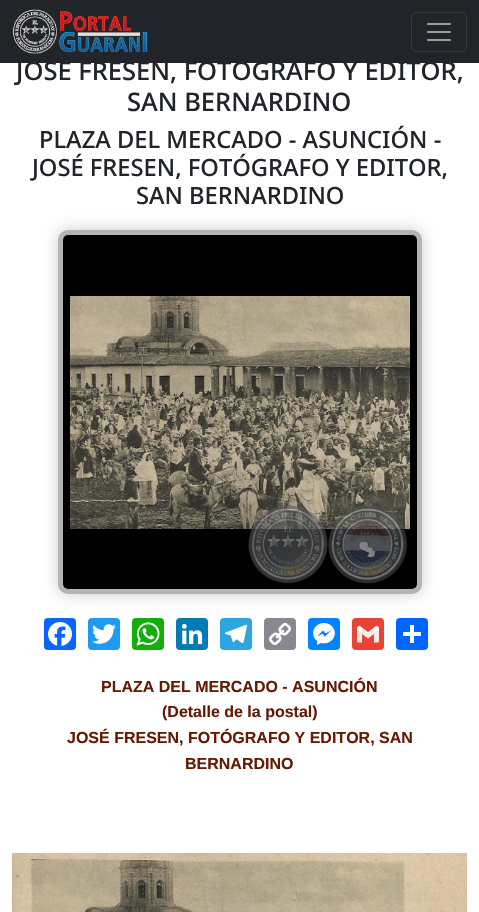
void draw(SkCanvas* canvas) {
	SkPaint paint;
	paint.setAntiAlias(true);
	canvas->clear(0xffffffff);
	paint.setColor(0xff212529);
	canvas->drawRect(SkRect::MakeXYWH(0, 0, 479, 63), paint);
	canvas->drawImageRect(SkImages::DeferredFromEncodedData(SkData::MakeFromFileName("img1.png")), SkRect::MakeXYWH(12, 9, 136, 45), SkSamplingOptions());
	paint.setStroke(true);
	paint.setStrokeWidth(1);
	paint.setColor(0xff373b3e);
	canvas->drawRoundRect(SkRect::MakeXYWH(411.5, 12.5, 55, 39), 5.5, 5.5, paint);
	canvas->drawImageRect(SkImages::DeferredFromEncodedData(SkData::MakeFromFileName("img2.png")), SkRect::MakeXYWH(427, 23, 24, 18), SkSamplingOptions());
	SkFont f1(fontMgr->matchFamilyStyle("Noto Sans", SkFontStyle(500, SkFontStyle::kNormal_Width, SkFontStyle::kUpright_Slant)), 25.5);
	f1.setSubpixel(true);
	paint.setStroke(false);
	paint.setColor(0xff212529);
	canvas->drawString("JOSÉ FRESEN, FOTÓGRAFO Y EDITOR,", 16, 80, f1, paint);
	canvas->drawString("SAN BERNARDINO", 127, 111, f1, paint);
	SkFont f2(fontMgr->matchFamilyStyle("Noto Sans", SkFontStyle(500, SkFontStyle::kNormal_Width, SkFontStyle::kUpright_Slant)), 23.7);
	f2.setSubpixel(true);
	canvas->drawString("PLAZA DEL MERCADO - ASUNCIÓN -", 39, 148, f2, paint);
	canvas->drawString("JOSÉ FRESEN, FOTÓGRAFO Y EDITOR,", 32, 176, f2, paint);
	canvas->drawString("SAN BERNARDINO", 136, 204, f2, paint);
	paint.setColor(0x33000000);
	paint.setMaskFilter(SkMaskFilter::MakeBlur(kNormal_SkBlurStyle, 7.5));
	canvas->drawRoundRect(SkRect::MakeXYWH(58, 230, 364, 364), 10, 10, paint);
	paint.setMaskFilter(nullptr);
	paint.setStroke(true);
	paint.setStrokeWidth(5);
	paint.setColor(0xffb0b4b3);
	canvas->drawRoundRect(SkRect::MakeXYWH(60.5, 232.5, 359, 359), 7.5, 7.5, paint);
	canvas->drawImageRect(SkImages::DeferredFromEncodedData(SkData::MakeFromFileName("img3.png")), SkRect::MakeXYWH(63, 235, 354, 354), SkSamplingOptions());
	paint.setStroke(false);
	paint.setColor(0xff0866ff);
	canvas->drawRoundRect(SkRect::MakeXYWH(44, 618, 32, 32), 4, 4, paint);
	canvas->drawImageRect(SkImages::DeferredFromEncodedData(SkData::MakeFromFileName("img4.png")), SkRect::MakeXYWH(48, 622, 24, 24), SkSamplingOptions());
	paint.setColor(0xff1d9bf0);
	canvas->drawRoundRect(SkRect::MakeXYWH(88, 618, 32, 32), 4, 4, paint);
	canvas->drawImageRect(SkImages::DeferredFromEncodedData(SkData::MakeFromFileName("img5.png")), SkRect::MakeXYWH(92, 624, 24, 20), SkSamplingOptions());
	paint.setColor(0xff12af0a);
	canvas->drawRoundRect(SkRect::MakeXYWH(132, 618, 32, 32), 4, 4, paint);
	canvas->drawImageRect(SkImages::DeferredFromEncodedData(SkData::MakeFromFileName("img6.png")), SkRect::MakeXYWH(136, 622, 24, 24), SkSamplingOptions());
	paint.setColor(0xff007bb5);
	canvas->drawRoundRect(SkRect::MakeXYWH(176, 618, 32, 32), 4, 4, paint);
	canvas->drawImageRect(SkImages::DeferredFromEncodedData(SkData::MakeFromFileName("img7.png")), SkRect::MakeXYWH(181, 623, 22, 22), SkSamplingOptions());
	paint.setColor(0xff2ca5e0);
	canvas->drawRoundRect(SkRect::MakeXYWH(220, 618, 32, 32), 4, 4, paint);
	canvas->drawImageRect(SkImages::DeferredFromEncodedData(SkData::MakeFromFileName("img8.png")), SkRect::MakeXYWH(225, 624, 22, 20), SkSamplingOptions());
	paint.setColor(0xff888990);
	canvas->drawRoundRect(SkRect::MakeXYWH(264, 618, 32, 32), 4, 4, paint);
	canvas->drawImageRect(SkImages::DeferredFromEncodedData(SkData::MakeFromFileName("img9.png")), SkRect::MakeXYWH(269, 623, 22, 22), SkSamplingOptions());
	paint.setColor(0xff0084ff);
	canvas->drawRoundRect(SkRect::MakeXYWH(308, 618, 32, 32), 4, 4, paint);
	canvas->drawImageRect(SkImages::DeferredFromEncodedData(SkData::MakeFromFileName("img10.png")), SkRect::MakeXYWH(313, 623, 22, 22), SkSamplingOptions());
	paint.setColor(0xffea4335);
	canvas->drawRoundRect(SkRect::MakeXYWH(352, 618, 32, 32), 4, 4, paint);
	canvas->drawImageRect(SkImages::DeferredFromEncodedData(SkData::MakeFromFileName("img11.png")), SkRect::MakeXYWH(357, 626, 22, 17), SkSamplingOptions());
	paint.setColor(0xff0166ff);
	canvas->drawRoundRect(SkRect::MakeXYWH(396, 618, 32, 32), 4, 4, paint);
	paint.setColor(0xffffffff);
	canvas->drawRect(SkRect::MakeXYWH(410, 625, 4, 18), paint);
	canvas->drawRect(SkRect::MakeXYWH(403, 632, 18, 4), paint);
	SkFont f3(fontMgr->matchFamilyStyle("Liberation Sans", SkFontStyle::Bold()), 16);
	f3.setSubpixel(true);
	paint.setColor(0xff661903);
	canvas->drawString("PLAZA DEL MERCADO - ASUNCIÓN", 101, 692, f3, paint);
	canvas->drawString("(Detalle de la postal)", 162, 717, f3, paint);
	canvas->drawString("JOSÉ FRESEN, FOTÓGRAFO Y EDITOR, SAN", 67, 743, f3, paint);
	canvas->drawString("BERNARDINO", 185, 769, f3, paint);
	canvas->drawImageRect(SkImages::DeferredFromEncodedData(SkData::MakeFromFileName("img12.png")), SkRect::MakeXYWH(12, 853, 455, 59), SkSamplingOptions());
}
